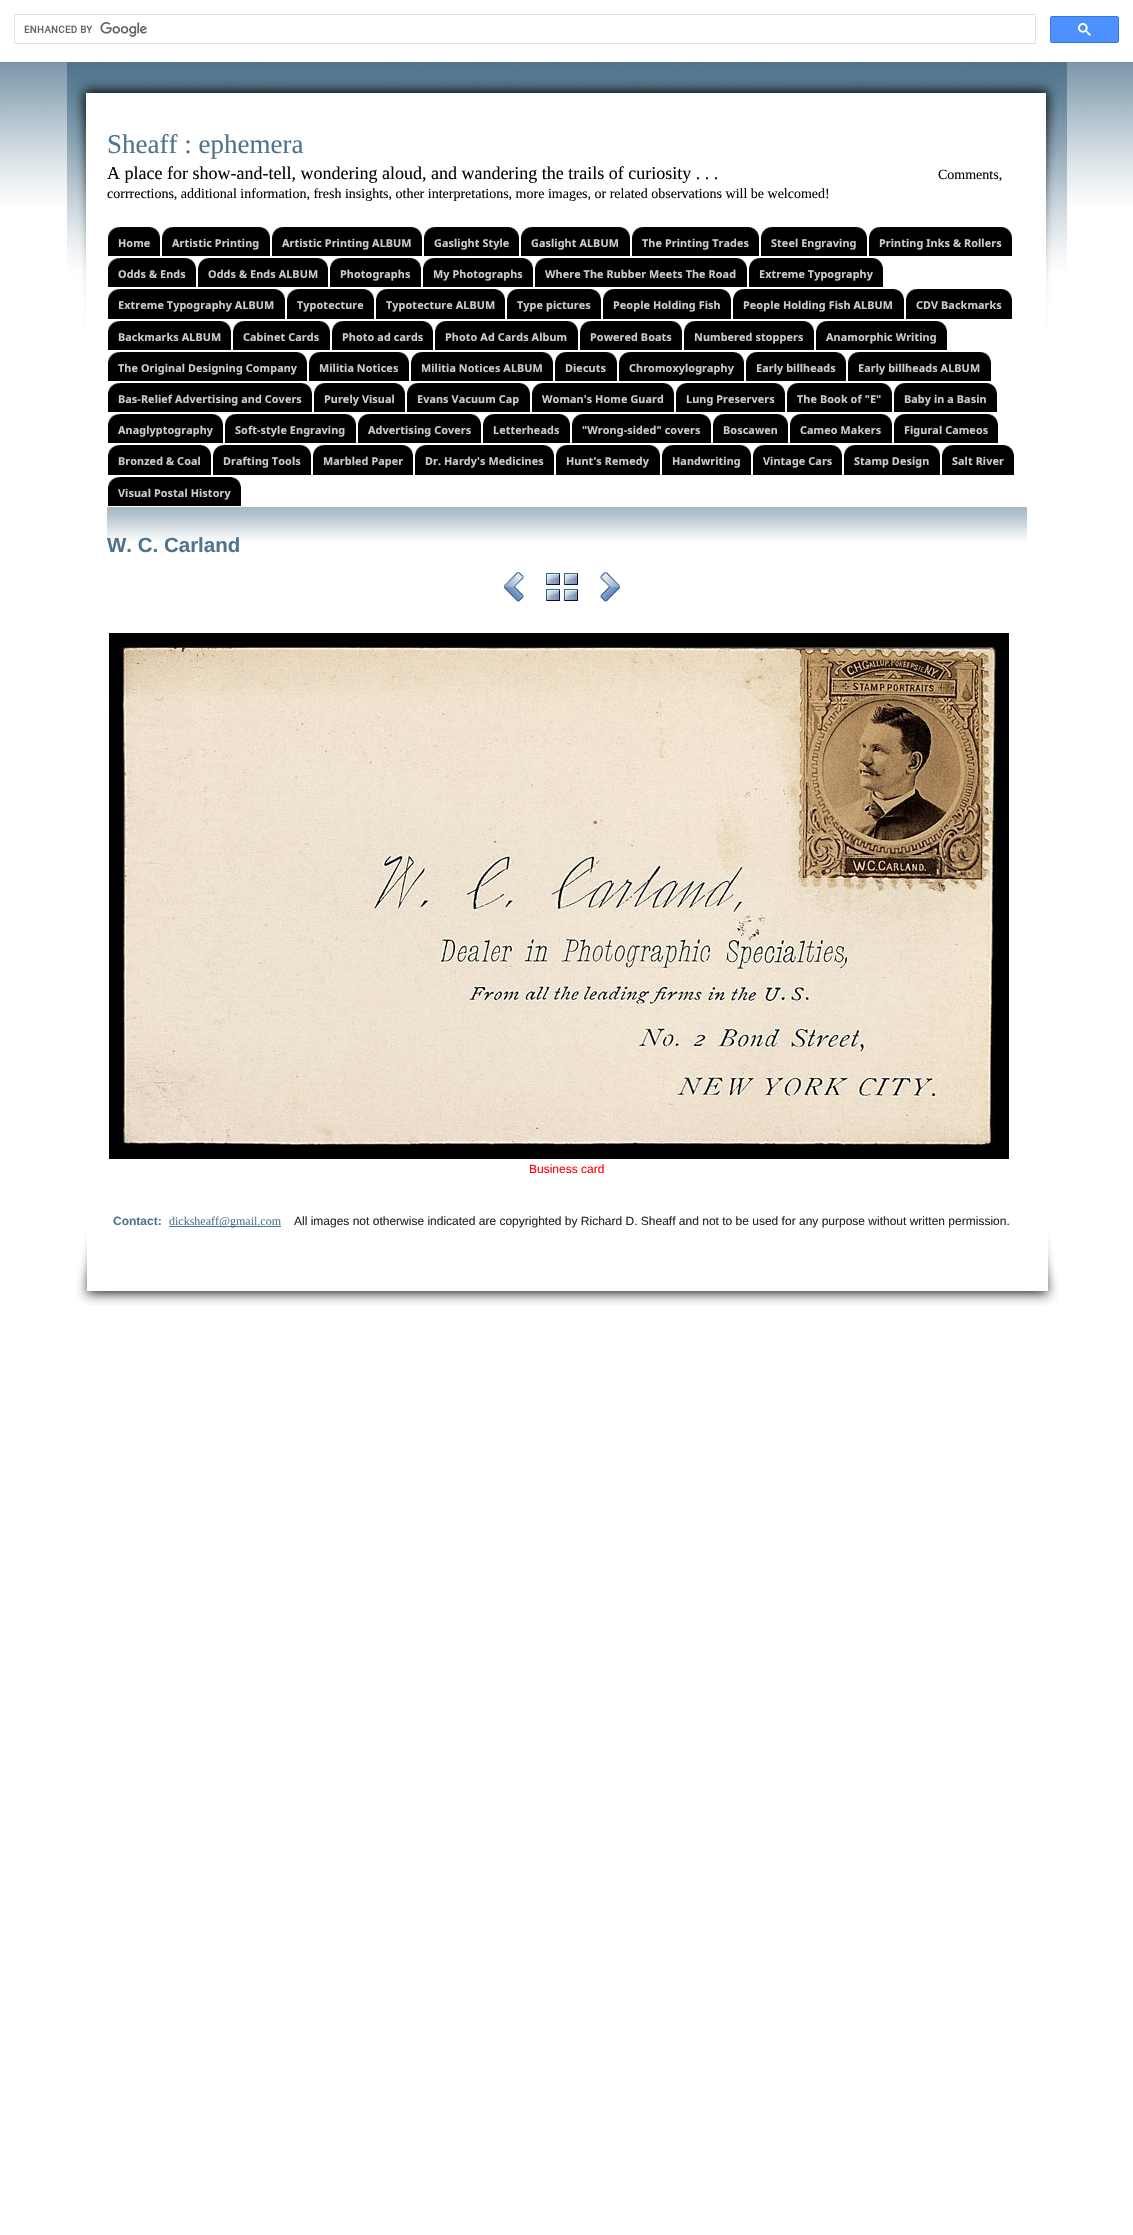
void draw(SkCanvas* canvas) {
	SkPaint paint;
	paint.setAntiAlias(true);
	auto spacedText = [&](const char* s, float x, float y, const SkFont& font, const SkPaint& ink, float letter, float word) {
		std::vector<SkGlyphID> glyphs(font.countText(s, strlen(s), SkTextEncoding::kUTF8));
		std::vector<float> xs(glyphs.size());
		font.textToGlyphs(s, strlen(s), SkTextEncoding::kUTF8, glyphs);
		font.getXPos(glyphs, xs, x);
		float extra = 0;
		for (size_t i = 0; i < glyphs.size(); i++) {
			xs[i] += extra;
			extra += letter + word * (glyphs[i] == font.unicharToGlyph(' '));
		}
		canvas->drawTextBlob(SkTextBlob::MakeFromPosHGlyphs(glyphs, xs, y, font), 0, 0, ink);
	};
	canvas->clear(0xffffffff);
	canvas->drawImageRect(SkImages::DeferredFromEncodedData(SkData::MakeFromFileName("img1.png")), SkRect::MakeXYWH(0, 62, 1133, 143), SkSamplingOptions());
	paint.setStroke(true);
	paint.setStrokeWidth(1);
	paint.setColor(0xffdfe1e5);
	canvas->drawRect(SkRect::MakeXYWH(14.5, 14.5, 1021, 29), paint);
	canvas->drawImageRect(SkImages::DeferredFromEncodedData(SkData::MakeFromFileName("img2.png")), SkRect::MakeXYWH(24, 22, 123, 15), SkSamplingOptions());
	paint.setStroke(false);
	paint.setColor(0xff4d90fe);
	canvas->drawRoundRect(SkRect::MakeXYWH(1050.5, 16.5, 68, 26), 1.5, 1.5, paint);
	paint.setStroke(true);
	paint.setColor(0xff3079ed);
	canvas->drawRoundRect(SkRect::MakeXYWH(1050.5, 16.5, 68, 26), 1.5, 1.5, paint);
	canvas->drawImageRect(SkImages::DeferredFromEncodedData(SkData::MakeFromFileName("img3.png")), SkRect::MakeXYWH(1078, 23, 13, 13), SkSamplingOptions());
	canvas->drawImageRect(SkImages::DeferredFromEncodedData(SkData::MakeFromFileName("img4.png")), SkRect::MakeXYWH(67, 62, 1000, 265), SkSamplingOptions());
	SkFont f1(fontMgr->matchFamilyStyle("Liberation Serif", SkFontStyle::Normal()), 27);
	f1.setSubpixel(true);
	paint.setStroke(false);
	paint.setColor(0xff4f748d);
	canvas->drawString("Sheaff : ephemera", 107, 153, f1, paint);
	SkFont f2(fontMgr->matchFamilyStyle("Liberation Serif", SkFontStyle::Normal()), 18);
	f2.setSubpixel(true);
	paint.setColor(0xff0a0102);
	canvas->drawString("A place for show-and-tell, wondering aloud, and wandering the trails of curiosity . . .", 107, 179, f2, paint);
	SkFont f3(fontMgr->matchFamilyStyle("Liberation Serif", SkFontStyle::Normal()), 14);
	f3.setSubpixel(true);
	canvas->drawString("Comments,", 938, 179, f3, paint);
	canvas->drawString("corrrections, additional information, fresh insights, other interpretations, more images, or related observations will be welcomed!", 107, 198, f3, paint);
	paint.setColor(0xff000000);
	canvas->drawRect(SkRect::MakeXYWH(150, 237, 10, 19), paint);
	canvas->drawImageRect(SkImages::DeferredFromEncodedData(SkData::MakeFromFileName("img5.png")), SkRect::MakeXYWH(150, 227, 10, 10), SkSamplingOptions());
	canvas->drawRect(SkRect::MakeXYWH(108, 227, 42, 29), paint);
	canvas->drawImageRect(SkImages::DeferredFromEncodedData(SkData::MakeFromFileName("img6.png")), SkRect::MakeXYWH(108, 227, 12, 10), SkSamplingOptions());
	SkFont f4(fontMgr->matchFamilyStyle("Noto Sans", SkFontStyle::Bold()), 10.8);
	f4.setSubpixel(true);
	paint.setColor(0xffcccccc);
	spacedText("Home", 118, 247, f4, paint, 0.1, 0);
	paint.setColor(0xff000000);
	canvas->drawRect(SkRect::MakeXYWH(260, 237, 10, 19), paint);
	canvas->drawImageRect(SkImages::DeferredFromEncodedData(SkData::MakeFromFileName("img5.png")), SkRect::MakeXYWH(260, 227, 10, 10), SkSamplingOptions());
	canvas->drawRect(SkRect::MakeXYWH(162, 227, 98, 29), paint);
	canvas->drawImageRect(SkImages::DeferredFromEncodedData(SkData::MakeFromFileName("img7.png")), SkRect::MakeXYWH(162, 227, 11, 10), SkSamplingOptions());
	paint.setColor(0xffcccccc);
	spacedText("Artistic Printing", 172, 247, f4, paint, 0.1, 0);
	paint.setColor(0xff000000);
	canvas->drawRect(SkRect::MakeXYWH(412, 237, 10, 19), paint);
	canvas->drawImageRect(SkImages::DeferredFromEncodedData(SkData::MakeFromFileName("img5.png")), SkRect::MakeXYWH(412, 227, 10, 10), SkSamplingOptions());
	canvas->drawRect(SkRect::MakeXYWH(272, 227, 140, 29), paint);
	canvas->drawImageRect(SkImages::DeferredFromEncodedData(SkData::MakeFromFileName("img7.png")), SkRect::MakeXYWH(272, 227, 11, 10), SkSamplingOptions());
	paint.setColor(0xffcccccc);
	spacedText("Artistic Printing ALBUM", 282, 247, f4, paint, 0.1, 0);
	paint.setColor(0xff000000);
	canvas->drawRect(SkRect::MakeXYWH(509, 237, 10, 19), paint);
	canvas->drawImageRect(SkImages::DeferredFromEncodedData(SkData::MakeFromFileName("img5.png")), SkRect::MakeXYWH(509, 227, 10, 10), SkSamplingOptions());
	canvas->drawRect(SkRect::MakeXYWH(424, 227, 85, 29), paint);
	canvas->drawImageRect(SkImages::DeferredFromEncodedData(SkData::MakeFromFileName("img7.png")), SkRect::MakeXYWH(424, 227, 11, 10), SkSamplingOptions());
	paint.setColor(0xffcccccc);
	spacedText("Gaslight Style", 434, 247, f4, paint, 0.1, 0);
	paint.setColor(0xff000000);
	canvas->drawRect(SkRect::MakeXYWH(620, 237, 10, 19), paint);
	canvas->drawImageRect(SkImages::DeferredFromEncodedData(SkData::MakeFromFileName("img5.png")), SkRect::MakeXYWH(620, 227, 10, 10), SkSamplingOptions());
	canvas->drawRect(SkRect::MakeXYWH(521, 227, 99, 29), paint);
	canvas->drawImageRect(SkImages::DeferredFromEncodedData(SkData::MakeFromFileName("img7.png")), SkRect::MakeXYWH(521, 227, 11, 10), SkSamplingOptions());
	paint.setColor(0xffcccccc);
	spacedText("Gaslight ALBUM", 531, 247, f4, paint, 0.1, 0);
	paint.setColor(0xff000000);
	canvas->drawRect(SkRect::MakeXYWH(749, 237, 10, 19), paint);
	canvas->drawImageRect(SkImages::DeferredFromEncodedData(SkData::MakeFromFileName("img5.png")), SkRect::MakeXYWH(749, 227, 10, 10), SkSamplingOptions());
	canvas->drawRect(SkRect::MakeXYWH(632, 227, 117, 29), paint);
	canvas->drawImageRect(SkImages::DeferredFromEncodedData(SkData::MakeFromFileName("img7.png")), SkRect::MakeXYWH(632, 227, 11, 10), SkSamplingOptions());
	paint.setColor(0xffcccccc);
	spacedText("The Printing Trades", 642, 247, f4, paint, 0.1, 0);
	paint.setColor(0xff000000);
	canvas->drawRect(SkRect::MakeXYWH(857, 237, 10, 19), paint);
	canvas->drawImageRect(SkImages::DeferredFromEncodedData(SkData::MakeFromFileName("img5.png")), SkRect::MakeXYWH(857, 227, 10, 10), SkSamplingOptions());
	canvas->drawRect(SkRect::MakeXYWH(761, 227, 96, 29), paint);
	canvas->drawImageRect(SkImages::DeferredFromEncodedData(SkData::MakeFromFileName("img7.png")), SkRect::MakeXYWH(761, 227, 11, 10), SkSamplingOptions());
	paint.setColor(0xffcccccc);
	spacedText("Steel Engraving", 771, 247, f4, paint, 0.1, 0);
	paint.setColor(0xff000000);
	canvas->drawRect(SkRect::MakeXYWH(1002, 237, 10, 19), paint);
	canvas->drawImageRect(SkImages::DeferredFromEncodedData(SkData::MakeFromFileName("img5.png")), SkRect::MakeXYWH(1002, 227, 10, 10), SkSamplingOptions());
	canvas->drawRect(SkRect::MakeXYWH(869, 227, 133, 29), paint);
	canvas->drawImageRect(SkImages::DeferredFromEncodedData(SkData::MakeFromFileName("img7.png")), SkRect::MakeXYWH(869, 227, 11, 10), SkSamplingOptions());
	paint.setColor(0xffcccccc);
	spacedText("Printing Inks & Rollers", 879, 247, f4, paint, 0.1, 0);
	paint.setColor(0xff000000);
	canvas->drawRect(SkRect::MakeXYWH(186, 268, 10, 19), paint);
	canvas->drawImageRect(SkImages::DeferredFromEncodedData(SkData::MakeFromFileName("img5.png")), SkRect::MakeXYWH(186, 258, 10, 10), SkSamplingOptions());
	canvas->drawRect(SkRect::MakeXYWH(108, 258, 78, 29), paint);
	canvas->drawImageRect(SkImages::DeferredFromEncodedData(SkData::MakeFromFileName("img6.png")), SkRect::MakeXYWH(108, 258, 12, 10), SkSamplingOptions());
	paint.setColor(0xffcccccc);
	spacedText("Odds & Ends", 118, 278, f4, paint, 0.1, 0);
	paint.setColor(0xff000000);
	canvas->drawRect(SkRect::MakeXYWH(318, 268, 10, 19), paint);
	canvas->drawImageRect(SkImages::DeferredFromEncodedData(SkData::MakeFromFileName("img5.png")), SkRect::MakeXYWH(318, 258, 10, 10), SkSamplingOptions());
	canvas->drawRect(SkRect::MakeXYWH(198, 258, 120, 29), paint);
	canvas->drawImageRect(SkImages::DeferredFromEncodedData(SkData::MakeFromFileName("img7.png")), SkRect::MakeXYWH(198, 258, 11, 10), SkSamplingOptions());
	paint.setColor(0xffcccccc);
	spacedText("Odds & Ends ALBUM", 208, 278, f4, paint, 0.1, 0);
	paint.setColor(0xff000000);
	canvas->drawRect(SkRect::MakeXYWH(411, 268, 10, 19), paint);
	canvas->drawImageRect(SkImages::DeferredFromEncodedData(SkData::MakeFromFileName("img5.png")), SkRect::MakeXYWH(411, 258, 10, 10), SkSamplingOptions());
	canvas->drawRect(SkRect::MakeXYWH(330, 258, 81, 29), paint);
	canvas->drawImageRect(SkImages::DeferredFromEncodedData(SkData::MakeFromFileName("img7.png")), SkRect::MakeXYWH(330, 258, 11, 10), SkSamplingOptions());
	paint.setColor(0xffcccccc);
	spacedText("Photographs", 340, 278, f4, paint, 0.1, 0);
	paint.setColor(0xff000000);
	canvas->drawRect(SkRect::MakeXYWH(523, 268, 10, 19), paint);
	canvas->drawImageRect(SkImages::DeferredFromEncodedData(SkData::MakeFromFileName("img5.png")), SkRect::MakeXYWH(523, 258, 10, 10), SkSamplingOptions());
	canvas->drawRect(SkRect::MakeXYWH(423, 258, 100, 29), paint);
	canvas->drawImageRect(SkImages::DeferredFromEncodedData(SkData::MakeFromFileName("img7.png")), SkRect::MakeXYWH(423, 258, 11, 10), SkSamplingOptions());
	paint.setColor(0xffcccccc);
	spacedText("My Photographs", 433, 278, f4, paint, 0.1, 0);
	paint.setColor(0xff000000);
	canvas->drawRect(SkRect::MakeXYWH(737, 268, 10, 19), paint);
	canvas->drawImageRect(SkImages::DeferredFromEncodedData(SkData::MakeFromFileName("img5.png")), SkRect::MakeXYWH(737, 258, 10, 10), SkSamplingOptions());
	canvas->drawRect(SkRect::MakeXYWH(535, 258, 202, 29), paint);
	canvas->drawImageRect(SkImages::DeferredFromEncodedData(SkData::MakeFromFileName("img7.png")), SkRect::MakeXYWH(535, 258, 11, 10), SkSamplingOptions());
	paint.setColor(0xffcccccc);
	spacedText("Where The Rubber Meets The Road", 545, 278, f4, paint, 0.1, 0);
	paint.setColor(0xff000000);
	canvas->drawRect(SkRect::MakeXYWH(873, 268, 10, 19), paint);
	canvas->drawImageRect(SkImages::DeferredFromEncodedData(SkData::MakeFromFileName("img5.png")), SkRect::MakeXYWH(873, 258, 10, 10), SkSamplingOptions());
	canvas->drawRect(SkRect::MakeXYWH(749, 258, 124, 29), paint);
	canvas->drawImageRect(SkImages::DeferredFromEncodedData(SkData::MakeFromFileName("img7.png")), SkRect::MakeXYWH(749, 258, 11, 10), SkSamplingOptions());
	paint.setColor(0xffcccccc);
	spacedText("Extreme Typography", 759, 278, f4, paint, 0.1, 0);
	paint.setColor(0xff000000);
	canvas->drawRect(SkRect::MakeXYWH(275, 299, 10, 20), paint);
	canvas->drawImageRect(SkImages::DeferredFromEncodedData(SkData::MakeFromFileName("img5.png")), SkRect::MakeXYWH(275, 289, 10, 10), SkSamplingOptions());
	canvas->drawRect(SkRect::MakeXYWH(108, 289, 167, 30), paint);
	canvas->drawImageRect(SkImages::DeferredFromEncodedData(SkData::MakeFromFileName("img6.png")), SkRect::MakeXYWH(108, 289, 12, 10), SkSamplingOptions());
	paint.setColor(0xffcccccc);
	spacedText("Extreme Typography ALBUM", 118, 309, f4, paint, 0.1, 0);
	paint.setColor(0xff000000);
	canvas->drawRect(SkRect::MakeXYWH(364, 299, 10, 20), paint);
	canvas->drawImageRect(SkImages::DeferredFromEncodedData(SkData::MakeFromFileName("img5.png")), SkRect::MakeXYWH(364, 289, 10, 10), SkSamplingOptions());
	canvas->drawRect(SkRect::MakeXYWH(287, 289, 77, 30), paint);
	canvas->drawImageRect(SkImages::DeferredFromEncodedData(SkData::MakeFromFileName("img6.png")), SkRect::MakeXYWH(287, 289, 12, 10), SkSamplingOptions());
	paint.setColor(0xffcccccc);
	spacedText("Typotecture", 297, 309, f4, paint, 0.1, 0);
	paint.setColor(0xff000000);
	canvas->drawRect(SkRect::MakeXYWH(495, 299, 10, 20), paint);
	canvas->drawImageRect(SkImages::DeferredFromEncodedData(SkData::MakeFromFileName("img5.png")), SkRect::MakeXYWH(495, 289, 10, 10), SkSamplingOptions());
	canvas->drawRect(SkRect::MakeXYWH(376, 289, 119, 30), paint);
	canvas->drawImageRect(SkImages::DeferredFromEncodedData(SkData::MakeFromFileName("img7.png")), SkRect::MakeXYWH(376, 289, 11, 10), SkSamplingOptions());
	paint.setColor(0xffcccccc);
	spacedText("Typotecture ALBUM", 386, 309, f4, paint, 0.1, 0);
	paint.setColor(0xff000000);
	canvas->drawRect(SkRect::MakeXYWH(591, 299, 10, 20), paint);
	canvas->drawImageRect(SkImages::DeferredFromEncodedData(SkData::MakeFromFileName("img5.png")), SkRect::MakeXYWH(591, 289, 10, 10), SkSamplingOptions());
	canvas->drawRect(SkRect::MakeXYWH(507, 289, 84, 30), paint);
	canvas->drawImageRect(SkImages::DeferredFromEncodedData(SkData::MakeFromFileName("img7.png")), SkRect::MakeXYWH(507, 289, 11, 10), SkSamplingOptions());
	paint.setColor(0xffcccccc);
	spacedText("Type pictures", 517, 309, f4, paint, 0.1, 0);
	paint.setColor(0xff000000);
	canvas->drawRect(SkRect::MakeXYWH(721, 299, 10, 20), paint);
	canvas->drawImageRect(SkImages::DeferredFromEncodedData(SkData::MakeFromFileName("img5.png")), SkRect::MakeXYWH(721, 289, 10, 10), SkSamplingOptions());
	canvas->drawRect(SkRect::MakeXYWH(603, 289, 118, 30), paint);
	canvas->drawImageRect(SkImages::DeferredFromEncodedData(SkData::MakeFromFileName("img7.png")), SkRect::MakeXYWH(603, 289, 11, 10), SkSamplingOptions());
	paint.setColor(0xffcccccc);
	spacedText("People Holding Fish", 613, 309, f4, paint, 0.1, 0);
	paint.setColor(0xff000000);
	canvas->drawRect(SkRect::MakeXYWH(894, 299, 10, 20), paint);
	canvas->drawImageRect(SkImages::DeferredFromEncodedData(SkData::MakeFromFileName("img5.png")), SkRect::MakeXYWH(894, 289, 10, 10), SkSamplingOptions());
	canvas->drawRect(SkRect::MakeXYWH(733, 289, 161, 30), paint);
	canvas->drawImageRect(SkImages::DeferredFromEncodedData(SkData::MakeFromFileName("img7.png")), SkRect::MakeXYWH(733, 289, 11, 10), SkSamplingOptions());
	paint.setColor(0xffcccccc);
	spacedText("People Holding Fish ALBUM", 743, 309, f4, paint, 0.1, 0);
	paint.setColor(0xff000000);
	canvas->drawRect(SkRect::MakeXYWH(1002, 299, 10, 20), paint);
	canvas->drawImageRect(SkImages::DeferredFromEncodedData(SkData::MakeFromFileName("img5.png")), SkRect::MakeXYWH(1002, 289, 10, 10), SkSamplingOptions());
	canvas->drawRect(SkRect::MakeXYWH(906, 289, 96, 30), paint);
	canvas->drawImageRect(SkImages::DeferredFromEncodedData(SkData::MakeFromFileName("img7.png")), SkRect::MakeXYWH(906, 289, 11, 10), SkSamplingOptions());
	paint.setColor(0xffcccccc);
	spacedText("CDV Backmarks", 916, 309, f4, paint, 0.1, 0);
	paint.setColor(0xff000000);
	canvas->drawRect(SkRect::MakeXYWH(221, 331, 10, 19), paint);
	canvas->drawImageRect(SkImages::DeferredFromEncodedData(SkData::MakeFromFileName("img5.png")), SkRect::MakeXYWH(221, 321, 10, 10), SkSamplingOptions());
	canvas->drawRect(SkRect::MakeXYWH(108, 321, 113, 29), paint);
	canvas->drawImageRect(SkImages::DeferredFromEncodedData(SkData::MakeFromFileName("img6.png")), SkRect::MakeXYWH(108, 321, 12, 10), SkSamplingOptions());
	paint.setColor(0xffcccccc);
	spacedText("Backmarks ALBUM", 118, 341, f4, paint, 0.1, 0);
	paint.setColor(0xff000000);
	canvas->drawRect(SkRect::MakeXYWH(320, 331, 10, 19), paint);
	canvas->drawImageRect(SkImages::DeferredFromEncodedData(SkData::MakeFromFileName("img5.png")), SkRect::MakeXYWH(320, 321, 10, 10), SkSamplingOptions());
	canvas->drawRect(SkRect::MakeXYWH(233, 321, 87, 29), paint);
	canvas->drawImageRect(SkImages::DeferredFromEncodedData(SkData::MakeFromFileName("img7.png")), SkRect::MakeXYWH(233, 321, 11, 10), SkSamplingOptions());
	paint.setColor(0xffcccccc);
	spacedText("Cabinet Cards", 243, 341, f4, paint, 0.1, 0);
	paint.setColor(0xff000000);
	canvas->drawRect(SkRect::MakeXYWH(423, 331, 10, 19), paint);
	canvas->drawImageRect(SkImages::DeferredFromEncodedData(SkData::MakeFromFileName("img5.png")), SkRect::MakeXYWH(423, 321, 10, 10), SkSamplingOptions());
	canvas->drawRect(SkRect::MakeXYWH(332, 321, 91, 29), paint);
	canvas->drawImageRect(SkImages::DeferredFromEncodedData(SkData::MakeFromFileName("img7.png")), SkRect::MakeXYWH(332, 321, 11, 10), SkSamplingOptions());
	paint.setColor(0xffcccccc);
	spacedText("Photo ad cards", 342, 341, f4, paint, 0.1, 0);
	paint.setColor(0xff000000);
	canvas->drawRect(SkRect::MakeXYWH(568, 331, 10, 19), paint);
	canvas->drawImageRect(SkImages::DeferredFromEncodedData(SkData::MakeFromFileName("img5.png")), SkRect::MakeXYWH(568, 321, 10, 10), SkSamplingOptions());
	canvas->drawRect(SkRect::MakeXYWH(435, 321, 133, 29), paint);
	canvas->drawImageRect(SkImages::DeferredFromEncodedData(SkData::MakeFromFileName("img7.png")), SkRect::MakeXYWH(435, 321, 11, 10), SkSamplingOptions());
	paint.setColor(0xffcccccc);
	spacedText("Photo Ad Cards Album", 445, 341, f4, paint, 0.1, 0);
	paint.setColor(0xff000000);
	canvas->drawRect(SkRect::MakeXYWH(672, 331, 10, 19), paint);
	canvas->drawImageRect(SkImages::DeferredFromEncodedData(SkData::MakeFromFileName("img5.png")), SkRect::MakeXYWH(672, 321, 10, 10), SkSamplingOptions());
	canvas->drawRect(SkRect::MakeXYWH(580, 321, 92, 29), paint);
	canvas->drawImageRect(SkImages::DeferredFromEncodedData(SkData::MakeFromFileName("img7.png")), SkRect::MakeXYWH(580, 321, 11, 10), SkSamplingOptions());
	paint.setColor(0xffcccccc);
	spacedText("Powered Boats", 590, 341, f4, paint, 0.1, 0);
	paint.setColor(0xff000000);
	canvas->drawRect(SkRect::MakeXYWH(804, 331, 10, 19), paint);
	canvas->drawImageRect(SkImages::DeferredFromEncodedData(SkData::MakeFromFileName("img5.png")), SkRect::MakeXYWH(804, 321, 10, 10), SkSamplingOptions());
	canvas->drawRect(SkRect::MakeXYWH(684, 321, 120, 29), paint);
	canvas->drawImageRect(SkImages::DeferredFromEncodedData(SkData::MakeFromFileName("img7.png")), SkRect::MakeXYWH(684, 321, 11, 10), SkSamplingOptions());
	paint.setColor(0xffcccccc);
	spacedText("Numbered stoppers", 694, 341, f4, paint, 0.1, 0);
	paint.setColor(0xff000000);
	canvas->drawRect(SkRect::MakeXYWH(937, 331, 10, 19), paint);
	canvas->drawImageRect(SkImages::DeferredFromEncodedData(SkData::MakeFromFileName("img5.png")), SkRect::MakeXYWH(937, 321, 10, 10), SkSamplingOptions());
	canvas->drawRect(SkRect::MakeXYWH(816, 321, 121, 29), paint);
	canvas->drawImageRect(SkImages::DeferredFromEncodedData(SkData::MakeFromFileName("img7.png")), SkRect::MakeXYWH(816, 321, 11, 10), SkSamplingOptions());
	paint.setColor(0xffcccccc);
	spacedText("Anamorphic Writing", 826, 341, f4, paint, 0.1, 0);
	paint.setColor(0xff000000);
	canvas->drawRect(SkRect::MakeXYWH(297, 362, 10, 19), paint);
	canvas->drawImageRect(SkImages::DeferredFromEncodedData(SkData::MakeFromFileName("img5.png")), SkRect::MakeXYWH(297, 352, 10, 10), SkSamplingOptions());
	canvas->drawRect(SkRect::MakeXYWH(108, 352, 189, 29), paint);
	canvas->drawImageRect(SkImages::DeferredFromEncodedData(SkData::MakeFromFileName("img6.png")), SkRect::MakeXYWH(108, 352, 12, 10), SkSamplingOptions());
	paint.setColor(0xffcccccc);
	spacedText("The Original Designing Company", 118, 372, f4, paint, 0.1, 0);
	paint.setColor(0xff000000);
	canvas->drawRect(SkRect::MakeXYWH(399, 362, 10, 19), paint);
	canvas->drawImageRect(SkImages::DeferredFromEncodedData(SkData::MakeFromFileName("img5.png")), SkRect::MakeXYWH(399, 352, 10, 10), SkSamplingOptions());
	canvas->drawRect(SkRect::MakeXYWH(309, 352, 90, 29), paint);
	canvas->drawImageRect(SkImages::DeferredFromEncodedData(SkData::MakeFromFileName("img7.png")), SkRect::MakeXYWH(309, 352, 11, 10), SkSamplingOptions());
	paint.setColor(0xffcccccc);
	spacedText("Militia Notices", 319, 372, f4, paint, 0.1, 0);
	paint.setColor(0xff000000);
	canvas->drawRect(SkRect::MakeXYWH(543, 362, 10, 19), paint);
	canvas->drawImageRect(SkImages::DeferredFromEncodedData(SkData::MakeFromFileName("img5.png")), SkRect::MakeXYWH(543, 352, 10, 10), SkSamplingOptions());
	canvas->drawRect(SkRect::MakeXYWH(411, 352, 132, 29), paint);
	canvas->drawImageRect(SkImages::DeferredFromEncodedData(SkData::MakeFromFileName("img7.png")), SkRect::MakeXYWH(411, 352, 11, 10), SkSamplingOptions());
	paint.setColor(0xffcccccc);
	spacedText("Militia Notices ALBUM", 421, 372, f4, paint, 0.1, 0);
	paint.setColor(0xff000000);
	canvas->drawRect(SkRect::MakeXYWH(607, 362, 10, 19), paint);
	canvas->drawImageRect(SkImages::DeferredFromEncodedData(SkData::MakeFromFileName("img5.png")), SkRect::MakeXYWH(607, 352, 10, 10), SkSamplingOptions());
	canvas->drawRect(SkRect::MakeXYWH(555, 352, 52, 29), paint);
	canvas->drawImageRect(SkImages::DeferredFromEncodedData(SkData::MakeFromFileName("img7.png")), SkRect::MakeXYWH(555, 352, 11, 10), SkSamplingOptions());
	paint.setColor(0xffcccccc);
	spacedText("Diecuts", 565, 372, f4, paint, 0.1, 0);
	paint.setColor(0xff000000);
	canvas->drawRect(SkRect::MakeXYWH(734, 362, 10, 19), paint);
	canvas->drawImageRect(SkImages::DeferredFromEncodedData(SkData::MakeFromFileName("img5.png")), SkRect::MakeXYWH(734, 352, 10, 10), SkSamplingOptions());
	canvas->drawRect(SkRect::MakeXYWH(619, 352, 115, 29), paint);
	canvas->drawImageRect(SkImages::DeferredFromEncodedData(SkData::MakeFromFileName("img7.png")), SkRect::MakeXYWH(619, 352, 11, 10), SkSamplingOptions());
	paint.setColor(0xffcccccc);
	spacedText("Chromoxylography", 629, 372, f4, paint, 0.1, 0);
	paint.setColor(0xff000000);
	canvas->drawRect(SkRect::MakeXYWH(836, 362, 10, 19), paint);
	canvas->drawImageRect(SkImages::DeferredFromEncodedData(SkData::MakeFromFileName("img5.png")), SkRect::MakeXYWH(836, 352, 10, 10), SkSamplingOptions());
	canvas->drawRect(SkRect::MakeXYWH(746, 352, 90, 29), paint);
	canvas->drawImageRect(SkImages::DeferredFromEncodedData(SkData::MakeFromFileName("img7.png")), SkRect::MakeXYWH(746, 352, 11, 10), SkSamplingOptions());
	paint.setColor(0xffcccccc);
	spacedText("Early billheads", 756, 372, f4, paint, 0.1, 0);
	paint.setColor(0xff000000);
	canvas->drawRect(SkRect::MakeXYWH(981, 362, 10, 19), paint);
	canvas->drawImageRect(SkImages::DeferredFromEncodedData(SkData::MakeFromFileName("img5.png")), SkRect::MakeXYWH(981, 352, 10, 10), SkSamplingOptions());
	canvas->drawRect(SkRect::MakeXYWH(848, 352, 133, 29), paint);
	canvas->drawImageRect(SkImages::DeferredFromEncodedData(SkData::MakeFromFileName("img7.png")), SkRect::MakeXYWH(848, 352, 11, 10), SkSamplingOptions());
	paint.setColor(0xffcccccc);
	spacedText("Early billheads ALBUM", 858, 372, f4, paint, 0.1, 0);
	paint.setColor(0xff000000);
	canvas->drawRect(SkRect::MakeXYWH(302, 393, 10, 19), paint);
	canvas->drawImageRect(SkImages::DeferredFromEncodedData(SkData::MakeFromFileName("img5.png")), SkRect::MakeXYWH(302, 383, 10, 10), SkSamplingOptions());
	canvas->drawRect(SkRect::MakeXYWH(108, 383, 194, 29), paint);
	canvas->drawImageRect(SkImages::DeferredFromEncodedData(SkData::MakeFromFileName("img6.png")), SkRect::MakeXYWH(108, 383, 12, 10), SkSamplingOptions());
	paint.setColor(0xffcccccc);
	spacedText("Bas-Relief Advertising and Covers", 118, 403, f4, paint, 0.1, 0);
	paint.setColor(0xff000000);
	canvas->drawRect(SkRect::MakeXYWH(395, 393, 10, 19), paint);
	canvas->drawImageRect(SkImages::DeferredFromEncodedData(SkData::MakeFromFileName("img5.png")), SkRect::MakeXYWH(395, 383, 10, 10), SkSamplingOptions());
	canvas->drawRect(SkRect::MakeXYWH(314, 383, 81, 29), paint);
	canvas->drawImageRect(SkImages::DeferredFromEncodedData(SkData::MakeFromFileName("img7.png")), SkRect::MakeXYWH(314, 383, 11, 10), SkSamplingOptions());
	paint.setColor(0xffcccccc);
	spacedText("Purely Visual", 324, 403, f4, paint, 0.1, 0);
	paint.setColor(0xff000000);
	canvas->drawRect(SkRect::MakeXYWH(520, 393, 10, 19), paint);
	canvas->drawImageRect(SkImages::DeferredFromEncodedData(SkData::MakeFromFileName("img5.png")), SkRect::MakeXYWH(520, 383, 10, 10), SkSamplingOptions());
	canvas->drawRect(SkRect::MakeXYWH(407, 383, 113, 29), paint);
	canvas->drawImageRect(SkImages::DeferredFromEncodedData(SkData::MakeFromFileName("img7.png")), SkRect::MakeXYWH(407, 383, 11, 10), SkSamplingOptions());
	paint.setColor(0xffcccccc);
	spacedText("Evans Vacuum Cap", 417, 403, f4, paint, 0.1, 0);
	paint.setColor(0xff000000);
	canvas->drawRect(SkRect::MakeXYWH(664, 393, 10, 19), paint);
	canvas->drawImageRect(SkImages::DeferredFromEncodedData(SkData::MakeFromFileName("img5.png")), SkRect::MakeXYWH(664, 383, 10, 10), SkSamplingOptions());
	canvas->drawRect(SkRect::MakeXYWH(532, 383, 132, 29), paint);
	canvas->drawImageRect(SkImages::DeferredFromEncodedData(SkData::MakeFromFileName("img7.png")), SkRect::MakeXYWH(532, 383, 11, 10), SkSamplingOptions());
	paint.setColor(0xffcccccc);
	spacedText("Woman's Home Guard", 542, 403, f4, paint, 0.1, 0);
	paint.setColor(0xff000000);
	canvas->drawRect(SkRect::MakeXYWH(775, 393, 10, 19), paint);
	canvas->drawImageRect(SkImages::DeferredFromEncodedData(SkData::MakeFromFileName("img5.png")), SkRect::MakeXYWH(775, 383, 10, 10), SkSamplingOptions());
	canvas->drawRect(SkRect::MakeXYWH(676, 383, 99, 29), paint);
	canvas->drawImageRect(SkImages::DeferredFromEncodedData(SkData::MakeFromFileName("img7.png")), SkRect::MakeXYWH(676, 383, 11, 10), SkSamplingOptions());
	paint.setColor(0xffcccccc);
	spacedText("Lung Preservers", 686, 403, f4, paint, 0.1, 0);
	paint.setColor(0xff000000);
	canvas->drawRect(SkRect::MakeXYWH(882, 393, 10, 19), paint);
	canvas->drawImageRect(SkImages::DeferredFromEncodedData(SkData::MakeFromFileName("img5.png")), SkRect::MakeXYWH(882, 383, 10, 10), SkSamplingOptions());
	canvas->drawRect(SkRect::MakeXYWH(787, 383, 95, 29), paint);
	canvas->drawImageRect(SkImages::DeferredFromEncodedData(SkData::MakeFromFileName("img7.png")), SkRect::MakeXYWH(787, 383, 11, 10), SkSamplingOptions());
	paint.setColor(0xffcccccc);
	spacedText("The Book of \"E\"", 797, 403, f4, paint, 0.1, 0);
	paint.setColor(0xff000000);
	canvas->drawRect(SkRect::MakeXYWH(987, 393, 10, 19), paint);
	canvas->drawImageRect(SkImages::DeferredFromEncodedData(SkData::MakeFromFileName("img5.png")), SkRect::MakeXYWH(987, 383, 10, 10), SkSamplingOptions());
	canvas->drawRect(SkRect::MakeXYWH(894, 383, 93, 29), paint);
	canvas->drawImageRect(SkImages::DeferredFromEncodedData(SkData::MakeFromFileName("img7.png")), SkRect::MakeXYWH(894, 383, 11, 10), SkSamplingOptions());
	paint.setColor(0xffcccccc);
	spacedText("Baby in a Basin", 904, 403, f4, paint, 0.1, 0);
	paint.setColor(0xff000000);
	canvas->drawRect(SkRect::MakeXYWH(213, 424, 10, 19), paint);
	canvas->drawImageRect(SkImages::DeferredFromEncodedData(SkData::MakeFromFileName("img5.png")), SkRect::MakeXYWH(213, 414, 10, 10), SkSamplingOptions());
	canvas->drawRect(SkRect::MakeXYWH(108, 414, 105, 29), paint);
	canvas->drawImageRect(SkImages::DeferredFromEncodedData(SkData::MakeFromFileName("img6.png")), SkRect::MakeXYWH(108, 414, 12, 10), SkSamplingOptions());
	paint.setColor(0xffcccccc);
	spacedText("Anaglyptography", 118, 434, f4, paint, 0.1, 0);
	paint.setColor(0xff000000);
	canvas->drawRect(SkRect::MakeXYWH(346, 424, 10, 19), paint);
	canvas->drawImageRect(SkImages::DeferredFromEncodedData(SkData::MakeFromFileName("img5.png")), SkRect::MakeXYWH(346, 414, 10, 10), SkSamplingOptions());
	canvas->drawRect(SkRect::MakeXYWH(225, 414, 121, 29), paint);
	canvas->drawImageRect(SkImages::DeferredFromEncodedData(SkData::MakeFromFileName("img7.png")), SkRect::MakeXYWH(225, 414, 11, 10), SkSamplingOptions());
	paint.setColor(0xffcccccc);
	spacedText("Soft-style Engraving", 235, 434, f4, paint, 0.1, 0);
	paint.setColor(0xff000000);
	canvas->drawRect(SkRect::MakeXYWH(471, 424, 10, 19), paint);
	canvas->drawImageRect(SkImages::DeferredFromEncodedData(SkData::MakeFromFileName("img5.png")), SkRect::MakeXYWH(471, 414, 10, 10), SkSamplingOptions());
	canvas->drawRect(SkRect::MakeXYWH(358, 414, 113, 29), paint);
	canvas->drawImageRect(SkImages::DeferredFromEncodedData(SkData::MakeFromFileName("img7.png")), SkRect::MakeXYWH(358, 414, 11, 10), SkSamplingOptions());
	paint.setColor(0xffcccccc);
	spacedText("Advertising Covers", 368, 434, f4, paint, 0.1, 0);
	paint.setColor(0xff000000);
	canvas->drawRect(SkRect::MakeXYWH(560, 424, 10, 19), paint);
	canvas->drawImageRect(SkImages::DeferredFromEncodedData(SkData::MakeFromFileName("img5.png")), SkRect::MakeXYWH(560, 414, 10, 10), SkSamplingOptions());
	canvas->drawRect(SkRect::MakeXYWH(483, 414, 77, 29), paint);
	canvas->drawImageRect(SkImages::DeferredFromEncodedData(SkData::MakeFromFileName("img7.png")), SkRect::MakeXYWH(483, 414, 11, 10), SkSamplingOptions());
	paint.setColor(0xffcccccc);
	spacedText("Letterheads", 493, 434, f4, paint, 0.1, 0);
	paint.setColor(0xff000000);
	canvas->drawRect(SkRect::MakeXYWH(701, 424, 10, 19), paint);
	canvas->drawImageRect(SkImages::DeferredFromEncodedData(SkData::MakeFromFileName("img5.png")), SkRect::MakeXYWH(701, 414, 10, 10), SkSamplingOptions());
	canvas->drawRect(SkRect::MakeXYWH(572, 414, 129, 29), paint);
	canvas->drawImageRect(SkImages::DeferredFromEncodedData(SkData::MakeFromFileName("img7.png")), SkRect::MakeXYWH(572, 414, 11, 10), SkSamplingOptions());
	paint.setColor(0xffcccccc);
	spacedText("\"Wrong-sided\" covers", 582, 434, f4, paint, 0.1, 0);
	paint.setColor(0xff000000);
	canvas->drawRect(SkRect::MakeXYWH(778, 424, 10, 19), paint);
	canvas->drawImageRect(SkImages::DeferredFromEncodedData(SkData::MakeFromFileName("img5.png")), SkRect::MakeXYWH(778, 414, 10, 10), SkSamplingOptions());
	canvas->drawRect(SkRect::MakeXYWH(713, 414, 65, 29), paint);
	canvas->drawImageRect(SkImages::DeferredFromEncodedData(SkData::MakeFromFileName("img7.png")), SkRect::MakeXYWH(713, 414, 11, 10), SkSamplingOptions());
	paint.setColor(0xffcccccc);
	spacedText("Boscawen", 723, 434, f4, paint, 0.1, 0);
	paint.setColor(0xff000000);
	canvas->drawRect(SkRect::MakeXYWH(882, 424, 10, 19), paint);
	canvas->drawImageRect(SkImages::DeferredFromEncodedData(SkData::MakeFromFileName("img5.png")), SkRect::MakeXYWH(882, 414, 10, 10), SkSamplingOptions());
	canvas->drawRect(SkRect::MakeXYWH(790, 414, 92, 29), paint);
	canvas->drawImageRect(SkImages::DeferredFromEncodedData(SkData::MakeFromFileName("img7.png")), SkRect::MakeXYWH(790, 414, 11, 10), SkSamplingOptions());
	paint.setColor(0xffcccccc);
	spacedText("Cameo Makers", 800, 434, f4, paint, 0.1, 0);
	paint.setColor(0xff000000);
	canvas->drawRect(SkRect::MakeXYWH(988, 424, 10, 19), paint);
	canvas->drawImageRect(SkImages::DeferredFromEncodedData(SkData::MakeFromFileName("img5.png")), SkRect::MakeXYWH(988, 414, 10, 10), SkSamplingOptions());
	canvas->drawRect(SkRect::MakeXYWH(894, 414, 94, 29), paint);
	canvas->drawImageRect(SkImages::DeferredFromEncodedData(SkData::MakeFromFileName("img7.png")), SkRect::MakeXYWH(894, 414, 11, 10), SkSamplingOptions());
	paint.setColor(0xffcccccc);
	spacedText("Figural Cameos", 904, 434, f4, paint, 0.1, 0);
	paint.setColor(0xff000000);
	canvas->drawRect(SkRect::MakeXYWH(201, 455, 10, 20), paint);
	canvas->drawImageRect(SkImages::DeferredFromEncodedData(SkData::MakeFromFileName("img5.png")), SkRect::MakeXYWH(201, 445, 10, 10), SkSamplingOptions());
	canvas->drawRect(SkRect::MakeXYWH(108, 445, 93, 30), paint);
	canvas->drawImageRect(SkImages::DeferredFromEncodedData(SkData::MakeFromFileName("img6.png")), SkRect::MakeXYWH(108, 445, 12, 10), SkSamplingOptions());
	paint.setColor(0xffcccccc);
	spacedText("Bronzed & Coal", 118, 465, f4, paint, 0.1, 0);
	paint.setColor(0xff000000);
	canvas->drawRect(SkRect::MakeXYWH(301, 455, 10, 20), paint);
	canvas->drawImageRect(SkImages::DeferredFromEncodedData(SkData::MakeFromFileName("img5.png")), SkRect::MakeXYWH(301, 445, 10, 10), SkSamplingOptions());
	canvas->drawRect(SkRect::MakeXYWH(213, 445, 88, 30), paint);
	canvas->drawImageRect(SkImages::DeferredFromEncodedData(SkData::MakeFromFileName("img7.png")), SkRect::MakeXYWH(213, 445, 11, 10), SkSamplingOptions());
	paint.setColor(0xffcccccc);
	spacedText("Drafting Tools", 223, 465, f4, paint, 0.1, 0);
	paint.setColor(0xff000000);
	canvas->drawRect(SkRect::MakeXYWH(403, 455, 10, 20), paint);
	canvas->drawImageRect(SkImages::DeferredFromEncodedData(SkData::MakeFromFileName("img5.png")), SkRect::MakeXYWH(403, 445, 10, 10), SkSamplingOptions());
	canvas->drawRect(SkRect::MakeXYWH(313, 445, 90, 30), paint);
	canvas->drawImageRect(SkImages::DeferredFromEncodedData(SkData::MakeFromFileName("img7.png")), SkRect::MakeXYWH(313, 445, 11, 10), SkSamplingOptions());
	paint.setColor(0xffcccccc);
	spacedText("Marbled Paper", 323, 465, f4, paint, 0.1, 0);
	paint.setColor(0xff000000);
	canvas->drawRect(SkRect::MakeXYWH(544, 455, 10, 20), paint);
	canvas->drawImageRect(SkImages::DeferredFromEncodedData(SkData::MakeFromFileName("img5.png")), SkRect::MakeXYWH(544, 445, 10, 10), SkSamplingOptions());
	canvas->drawRect(SkRect::MakeXYWH(415, 445, 129, 30), paint);
	canvas->drawImageRect(SkImages::DeferredFromEncodedData(SkData::MakeFromFileName("img7.png")), SkRect::MakeXYWH(415, 445, 11, 10), SkSamplingOptions());
	paint.setColor(0xffcccccc);
	spacedText("Dr. Hardy's Medicines", 425, 465, f4, paint, 0.1, 0);
	paint.setColor(0xff000000);
	canvas->drawRect(SkRect::MakeXYWH(650, 455, 10, 20), paint);
	canvas->drawImageRect(SkImages::DeferredFromEncodedData(SkData::MakeFromFileName("img5.png")), SkRect::MakeXYWH(650, 445, 10, 10), SkSamplingOptions());
	canvas->drawRect(SkRect::MakeXYWH(556, 445, 94, 30), paint);
	canvas->drawImageRect(SkImages::DeferredFromEncodedData(SkData::MakeFromFileName("img7.png")), SkRect::MakeXYWH(556, 445, 11, 10), SkSamplingOptions());
	paint.setColor(0xffcccccc);
	spacedText("Hunt's Remedy", 566, 465, f4, paint, 0.1, 0);
	paint.setColor(0xff000000);
	canvas->drawRect(SkRect::MakeXYWH(741, 455, 10, 20), paint);
	canvas->drawImageRect(SkImages::DeferredFromEncodedData(SkData::MakeFromFileName("img5.png")), SkRect::MakeXYWH(741, 445, 10, 10), SkSamplingOptions());
	canvas->drawRect(SkRect::MakeXYWH(662, 445, 79, 30), paint);
	canvas->drawImageRect(SkImages::DeferredFromEncodedData(SkData::MakeFromFileName("img7.png")), SkRect::MakeXYWH(662, 445, 11, 10), SkSamplingOptions());
	paint.setColor(0xffcccccc);
	spacedText("Handwriting", 672, 465, f4, paint, 0.1, 0);
	paint.setColor(0xff000000);
	canvas->drawRect(SkRect::MakeXYWH(832, 455, 10, 20), paint);
	canvas->drawImageRect(SkImages::DeferredFromEncodedData(SkData::MakeFromFileName("img5.png")), SkRect::MakeXYWH(832, 445, 10, 10), SkSamplingOptions());
	canvas->drawRect(SkRect::MakeXYWH(753, 445, 79, 30), paint);
	canvas->drawImageRect(SkImages::DeferredFromEncodedData(SkData::MakeFromFileName("img7.png")), SkRect::MakeXYWH(753, 445, 11, 10), SkSamplingOptions());
	paint.setColor(0xffcccccc);
	spacedText("Vintage Cars", 763, 465, f4, paint, 0.1, 0);
	paint.setColor(0xff000000);
	canvas->drawRect(SkRect::MakeXYWH(930, 455, 10, 20), paint);
	canvas->drawImageRect(SkImages::DeferredFromEncodedData(SkData::MakeFromFileName("img5.png")), SkRect::MakeXYWH(930, 445, 10, 10), SkSamplingOptions());
	canvas->drawRect(SkRect::MakeXYWH(844, 445, 86, 30), paint);
	canvas->drawImageRect(SkImages::DeferredFromEncodedData(SkData::MakeFromFileName("img7.png")), SkRect::MakeXYWH(844, 445, 11, 10), SkSamplingOptions());
	paint.setColor(0xffcccccc);
	spacedText("Stamp Design", 854, 465, f4, paint, 0.1, 0);
	paint.setColor(0xff000000);
	canvas->drawRect(SkRect::MakeXYWH(1004, 455, 10, 20), paint);
	canvas->drawImageRect(SkImages::DeferredFromEncodedData(SkData::MakeFromFileName("img5.png")), SkRect::MakeXYWH(1004, 445, 10, 10), SkSamplingOptions());
	canvas->drawRect(SkRect::MakeXYWH(942, 445, 62, 30), paint);
	canvas->drawImageRect(SkImages::DeferredFromEncodedData(SkData::MakeFromFileName("img7.png")), SkRect::MakeXYWH(942, 445, 11, 10), SkSamplingOptions());
	paint.setColor(0xffcccccc);
	spacedText("Salt River", 952, 465, f4, paint, 0.1, 0);
	paint.setColor(0xff000000);
	canvas->drawRect(SkRect::MakeXYWH(231, 487, 10, 19), paint);
	canvas->drawImageRect(SkImages::DeferredFromEncodedData(SkData::MakeFromFileName("img5.png")), SkRect::MakeXYWH(231, 477, 10, 10), SkSamplingOptions());
	canvas->drawRect(SkRect::MakeXYWH(108, 477, 123, 29), paint);
	canvas->drawImageRect(SkImages::DeferredFromEncodedData(SkData::MakeFromFileName("img6.png")), SkRect::MakeXYWH(108, 477, 12, 10), SkSamplingOptions());
	paint.setColor(0xffcccccc);
	spacedText("Visual Postal History", 118, 497, f4, paint, 0.1, 0);
	canvas->drawImageRect(SkImages::DeferredFromEncodedData(SkData::MakeFromFileName("img8.png")), SkRect::MakeXYWH(107, 507, 920, 35), SkSamplingOptions());
	SkFont f5(fontMgr->matchFamilyStyle("Liberation Sans", SkFontStyle::Bold()), 20.5);
	f5.setSubpixel(true);
	paint.setColor(0xff4f748d);
	canvas->drawString("W. C. Carland", 107, 552, f5, paint);
	canvas->drawImageRect(SkImages::DeferredFromEncodedData(SkData::MakeFromFileName("img9.png")), SkRect::MakeXYWH(504, 572, 20, 30), SkSamplingOptions());
	canvas->drawImageRect(SkImages::DeferredFromEncodedData(SkData::MakeFromFileName("img10.png")), SkRect::MakeXYWH(546, 573, 32, 28), SkSamplingOptions());
	canvas->drawImageRect(SkImages::DeferredFromEncodedData(SkData::MakeFromFileName("img11.png")), SkRect::MakeXYWH(600, 572, 20, 30), SkSamplingOptions());
	canvas->drawImageRect(SkImages::DeferredFromEncodedData(SkData::MakeFromFileName("img12.png")), SkRect::MakeXYWH(109, 633, 900, 526), SkSamplingOptions());
	SkFont f6(fontMgr->matchFamilyStyle("Liberation Sans", SkFontStyle::Normal()), 12);
	f6.setSubpixel(true);
	paint.setColor(0xffff0009);
	canvas->drawString("Business card", 529, 1173, f6, paint);
	canvas->drawImageRect(SkImages::DeferredFromEncodedData(SkData::MakeFromFileName("img13.png")), SkRect::MakeXYWH(76, 1230, 983, 75), SkSamplingOptions());
	SkFont f7(fontMgr->matchFamilyStyle("Liberation Sans", SkFontStyle::Bold()), 12);
	f7.setSubpixel(true);
	paint.setColor(0xff4f748d);
	canvas->drawString("Contact:", 113, 1225, f7, paint);
	canvas->drawRect(SkRect::MakeXYWH(169, 1226, 112, 1), paint);
	SkFont f8(fontMgr->matchFamilyStyle("Liberation Serif", SkFontStyle::Normal()), 12);
	f8.setSubpixel(true);
	canvas->drawString("dicksheaff@gmail.com", 169, 1225, f8, paint);
	paint.setColor(0xff272525);
	canvas->drawString("All images not otherwise indicated are copyrighted by Richard D. Sheaff and not to be used for any purpose without written permission.", 294, 1225, f6, paint);
}
